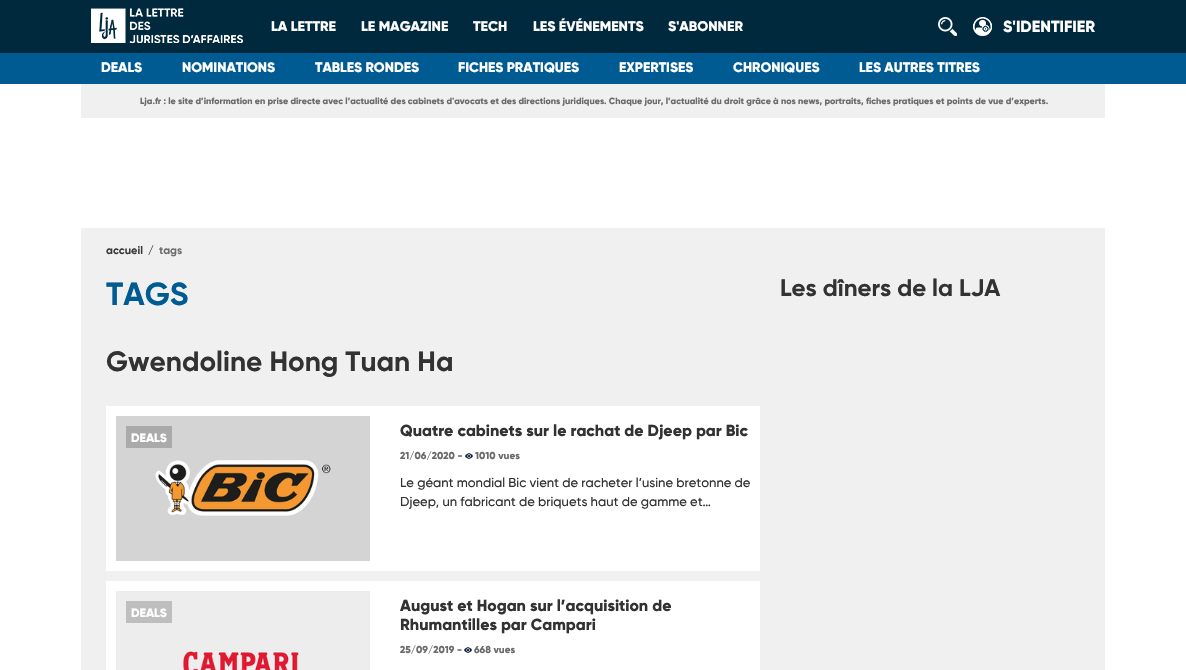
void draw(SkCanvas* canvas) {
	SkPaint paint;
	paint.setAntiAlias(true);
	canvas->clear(0xffffffff);
	paint.setColor(0xff00293d);
	canvas->drawRect(SkRect::MakeXYWH(0, 0, 1186, 53), paint);
	canvas->drawImageRect(SkImages::DeferredFromEncodedData(SkData::MakeFromFileName("img1.png")), SkRect::MakeXYWH(91, 8, 152, 35), SkSamplingOptions());
	SkFont f1(fontMgr->matchFamilyStyle("Gilroy", SkFontStyle(800, SkFontStyle::kNormal_Width, SkFontStyle::kUpright_Slant)), 14);
	f1.setSubpixel(true);
	paint.setColor(0xffffffff);
	canvas->drawString("LA LETTRE", 271, 31, f1, paint);
	canvas->drawString("LE MAGAZINE", 361, 31, f1, paint);
	canvas->drawString("TECH", 473, 31, f1, paint);
	canvas->drawString("LES ÉVÉNEMENTS", 533, 31, f1, paint);
	canvas->drawString("S'ABONNER", 668, 31, f1, paint);
	canvas->drawImageRect(SkImages::DeferredFromEncodedData(SkData::MakeFromFileName("img2.png")), SkRect::MakeXYWH(938, 17, 19, 19), SkSamplingOptions());
	canvas->drawImageRect(SkImages::DeferredFromEncodedData(SkData::MakeFromFileName("img3.png")), SkRect::MakeXYWH(973, 17, 19, 19), SkSamplingOptions());
	SkFont f2(fontMgr->matchFamilyStyle("Gilroy", SkFontStyle(800, SkFontStyle::kNormal_Width, SkFontStyle::kUpright_Slant)), 16);
	f2.setSubpixel(true);
	canvas->drawString("S'IDENTIFIER", 1003, 32, f2, paint);
	paint.setColor(0xff005b93);
	canvas->drawRect(SkRect::MakeXYWH(0, 53, 1186, 31), paint);
	SkFont f3(fontMgr->matchFamilyStyle("Gilroy", SkFontStyle(800, SkFontStyle::kNormal_Width, SkFontStyle::kUpright_Slant)), 13.75);
	f3.setSubpixel(true);
	paint.setColor(0xffffffff);
	canvas->drawString("DEALS", 101, 72, f3, paint);
	canvas->drawString("NOMINATIONS", 182, 72, f3, paint);
	canvas->drawString("TABLES RONDES", 315, 72, f3, paint);
	canvas->drawString("FICHES PRATIQUES", 458, 72, f3, paint);
	canvas->drawString("EXPERTISES", 619, 72, f3, paint);
	canvas->drawString("CHRONIQUES", 733, 72, f3, paint);
	canvas->drawString("LES AUTRES TITRES", 859, 72, f3, paint);
	paint.setColor(0xfff0f0f0);
	canvas->drawRect(SkRect::MakeXYWH(81, 84, 1024, 34), paint);
	SkFont f4(fontMgr->matchFamilyStyle("Gilroy", SkFontStyle(800, SkFontStyle::kNormal_Width, SkFontStyle::kUpright_Slant)), 8.99);
	f4.setSubpixel(true);
	paint.setColor(0xff6b6b6b);
	canvas->drawString("Lja.fr : le site d’information en prise directe avec l’actualité des cabinets d'avocats et des directions juridiques. Chaque jour, l’actualité du droit grâce à nos news, portraits, fiches pratiques et points de vue d’experts.", 140, 104, f4, paint);
	paint.setColor(0xfff0f0f0);
	canvas->drawRect(SkRect::MakeXYWH(81, 228, 1024, 442), paint);
	SkFont f5(fontMgr->matchFamilyStyle("Gilroy", SkFontStyle::Bold()), 11);
	f5.setSubpixel(true);
	paint.setColor(0xff393939);
	canvas->drawString("accueil", 106, 254, f5, paint);
	canvas->drawString("/", 148, 254, f5, paint);
	paint.setColor(0xff6b6b6b);
	canvas->drawString("tags", 159, 254, f5, paint);
	SkFont f6(fontMgr->matchFamilyStyle("Gilroy", SkFontStyle::Bold()), 32);
	f6.setSubpixel(true);
	paint.setColor(0xff005b93);
	canvas->drawString("TAGS", 106, 305, f6, paint);
	SkFont f7(fontMgr->matchFamilyStyle("Gilroy", SkFontStyle::Bold()), 28);
	f7.setSubpixel(true);
	paint.setColor(0xff323232);
	canvas->drawString("Gwendoline Hong Tuan Ha", 106, 371, f7, paint);
	paint.setColor(0xffffffff);
	canvas->drawRect(SkRect::MakeXYWH(106, 406, 654, 165), paint);
	canvas->drawImageRect(SkImages::DeferredFromEncodedData(SkData::MakeFromFileName("img4.png")), SkRect::MakeXYWH(116, 416, 254, 145), SkSamplingOptions());
	paint.setColor(0xffaaaaaa);
	canvas->drawRect(SkRect::MakeXYWH(126, 426, 46, 22), paint);
	SkFont f8(fontMgr->matchFamilyStyle("Gilroy", SkFontStyle(800, SkFontStyle::kNormal_Width, SkFontStyle::kUpright_Slant)), 12);
	f8.setSubpixel(true);
	paint.setColor(0xffffffff);
	canvas->drawString("DEALS", 131, 442, f8, paint);
	paint.setColor(0xff323232);
	canvas->drawString("Quatre cabinets sur le rachat de Djeep par Bic", 400, 436, f2, paint);
	SkFont f9(fontMgr->matchFamilyStyle("Gilroy", SkFontStyle(800, SkFontStyle::kNormal_Width, SkFontStyle::kUpright_Slant)), 10);
	f9.setSubpixel(true);
	paint.setColor(0xff6b6b6b);
	canvas->drawString("21/06/2020 -", 400, 459, f9, paint);
	canvas->drawImageRect(SkImages::DeferredFromEncodedData(SkData::MakeFromFileName("img5.png")), SkRect::MakeXYWH(465, 453, 8, 6), SkSamplingOptions());
	canvas->drawString("1010 vues", 475, 459, f9, paint);
	SkFont f10(fontMgr->matchFamilyStyle("Gilroy", SkFontStyle(500, SkFontStyle::kNormal_Width, SkFontStyle::kUpright_Slant)), 13);
	f10.setSubpixel(true);
	paint.setColor(0xff323232);
	canvas->drawString("Le géant mondial Bic vient de racheter l’usine bretonne de", 400, 487, f10, paint);
	canvas->drawString("Djeep, un fabricant de briquets haut de gamme et…", 400, 506, f10, paint);
	paint.setColor(0xffffffff);
	canvas->drawRect(SkRect::MakeXYWH(106, 581, 654, 89), paint);
	canvas->drawImageRect(SkImages::DeferredFromEncodedData(SkData::MakeFromFileName("img6.png")), SkRect::MakeXYWH(116, 591, 254, 79), SkSamplingOptions());
	paint.setColor(0xffbebebe);
	canvas->drawRect(SkRect::MakeXYWH(126, 601, 46, 22), paint);
	paint.setColor(0xffffffff);
	canvas->drawString("DEALS", 131, 617, f8, paint);
	paint.setColor(0xff323232);
	canvas->drawString("August et Hogan sur l’acquisition de", 400, 611, f2, paint);
	canvas->drawString("Rhumantilles par Campari", 400, 630, f2, paint);
	paint.setColor(0xff6b6b6b);
	canvas->drawString("25/09/2019 -", 400, 653, f9, paint);
	canvas->drawImageRect(SkImages::DeferredFromEncodedData(SkData::MakeFromFileName("img5.png")), SkRect::MakeXYWH(464, 647, 8, 6), SkSamplingOptions());
	canvas->drawString("668 vues", 474, 653, f9, paint);
	SkFont f11(fontMgr->matchFamilyStyle("Gilroy", SkFontStyle::Bold()), 24);
	f11.setSubpixel(true);
	paint.setColor(0xff323232);
	canvas->drawString("Les dîners de la LJA", 780, 296, f11, paint);
}
